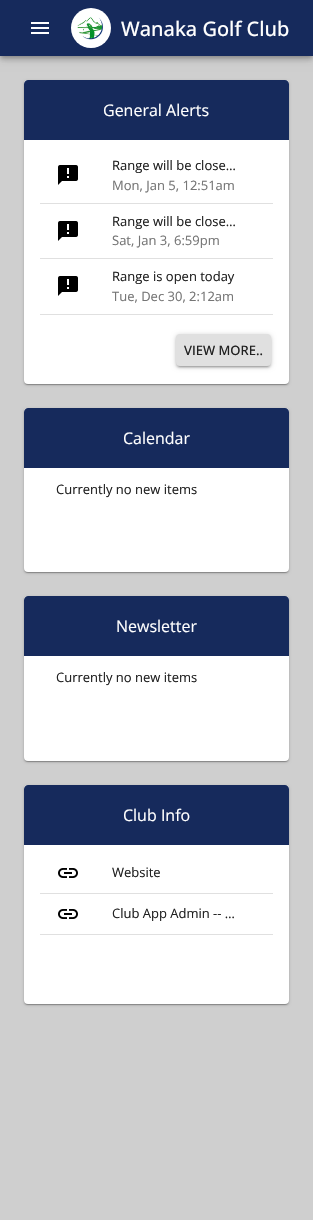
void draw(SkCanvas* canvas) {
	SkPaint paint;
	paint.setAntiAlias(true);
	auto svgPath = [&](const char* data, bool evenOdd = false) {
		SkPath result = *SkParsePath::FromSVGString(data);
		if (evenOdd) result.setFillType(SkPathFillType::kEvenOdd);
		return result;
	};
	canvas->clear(0xffcfcfcf);
	paint.setColor(0x1f000000);
	paint.setMaskFilter(SkMaskFilter::MakeBlur(kNormal_SkBlurStyle, 5));
	canvas->drawRect(SkRect::MakeXYWH(0, 1, 313, 56), paint);
	paint.setMaskFilter(nullptr);
	paint.setColor(0x24000000);
	paint.setMaskFilter(SkMaskFilter::MakeBlur(kNormal_SkBlurStyle, 2.5));
	canvas->drawRect(SkRect::MakeXYWH(0, 4, 313, 56), paint);
	paint.setMaskFilter(nullptr);
	paint.setColor(0x33000000);
	paint.setMaskFilter(SkMaskFilter::MakeBlur(kNormal_SkBlurStyle, 2));
	canvas->drawRect(SkRect::MakeXYWH(1, 3, 311, 54), paint);
	paint.setMaskFilter(nullptr);
	paint.setColor(0xff162a5c);
	canvas->drawRect(SkRect::MakeXYWH(0, 0, 313, 56), paint);
	canvas->drawImageRect(SkImages::DeferredFromEncodedData(SkData::MakeFromFileName("img1.png")), SkRect::MakeXYWH(31, 22, 18, 12), SkSamplingOptions());
	canvas->drawImageRect(SkImages::DeferredFromEncodedData(SkData::MakeFromFileName("img2.png")), SkRect::MakeXYWH(71, 8, 40, 40), SkSamplingOptions());
	SkFont f1(fontMgr->matchFamilyStyle("Open Sans", SkFontStyle(500, SkFontStyle::kNormal_Width, SkFontStyle::kUpright_Slant)), 20);
	f1.setSubpixel(true);
	paint.setColor(0xffffffff);
	canvas->drawString("Wanaka Golf Club", 121, 36, f1, paint);
	paint.setColor(0x1f000000);
	paint.setMaskFilter(SkMaskFilter::MakeBlur(kNormal_SkBlurStyle, 0.5));
	canvas->drawRoundRect(SkRect::MakeXYWH(25, 83, 263, 302), 3, 3, paint);
	paint.setMaskFilter(nullptr);
	paint.setColor(0x24000000);
	paint.setMaskFilter(SkMaskFilter::MakeBlur(kNormal_SkBlurStyle, 0.5));
	canvas->drawRoundRect(SkRect::MakeXYWH(24, 81, 265, 304), 4, 4, paint);
	paint.setMaskFilter(nullptr);
	paint.setColor(0x33000000);
	paint.setMaskFilter(SkMaskFilter::MakeBlur(kNormal_SkBlurStyle, 1.5));
	canvas->drawRoundRect(SkRect::MakeXYWH(24, 81, 265, 304), 4, 4, paint);
	paint.setMaskFilter(nullptr);
	paint.setColor(0xffffffff);
	canvas->drawRoundRect(SkRect::MakeXYWH(24, 80, 265, 304), 4, 4, paint);
	paint.setColor(0xff162a5c);
	canvas->drawPath(svgPath("M28 80H285C287 80 289 82 289 84V140H24V84C24 82 26 80 28 80Z"), paint);
	SkFont f2(fontMgr->matchFamilyStyle("Open Sans", SkFontStyle::Normal()), 16);
	f2.setSubpixel(true);
	paint.setColor(0xffffffff);
	canvas->drawString("General Alerts", 103, 116, f2, paint);
	paint.setColor(0xffe0e0e0);
	canvas->drawRect(SkRect::MakeXYWH(40, 203, 233, 1), paint);
	canvas->drawImageRect(SkImages::DeferredFromEncodedData(SkData::MakeFromFileName("img3.png")), SkRect::MakeXYWH(58, 165, 20, 20), SkSamplingOptions());
	SkFont f3(fontMgr->matchFamilyStyle("Open Sans", SkFontStyle::Normal()), 13);
	f3.setSubpixel(true);
	paint.setColor(0xff212121);
	canvas->drawString("Range will be close…", 112, 170, f3, paint);
	paint.setColor(0xff757575);
	canvas->drawString("Mon, Jan 5, 12:51am", 112, 190, f3, paint);
	paint.setColor(0xffe0e0e0);
	canvas->drawRect(SkRect::MakeXYWH(40, 258, 233, 1), paint);
	canvas->drawImageRect(SkImages::DeferredFromEncodedData(SkData::MakeFromFileName("img3.png")), SkRect::MakeXYWH(58, 221, 20, 20), SkSamplingOptions());
	paint.setColor(0xff212121);
	canvas->drawString("Range will be close…", 112, 226, f3, paint);
	paint.setColor(0xff757575);
	canvas->drawString("Sat, Jan 3, 6:59pm", 112, 245, f3, paint);
	paint.setColor(0xffe0e0e0);
	canvas->drawRect(SkRect::MakeXYWH(40, 314, 233, 1), paint);
	canvas->drawImageRect(SkImages::DeferredFromEncodedData(SkData::MakeFromFileName("img3.png")), SkRect::MakeXYWH(58, 276, 20, 20), SkSamplingOptions());
	paint.setColor(0xff212121);
	canvas->drawString("Range is open today", 112, 281, f3, paint);
	paint.setColor(0xff757575);
	canvas->drawString("Tue, Dec 30, 2:12am", 112, 301, f3, paint);
	paint.setColor(0x1f000000);
	paint.setMaskFilter(SkMaskFilter::MakeBlur(kNormal_SkBlurStyle, 0.5));
	canvas->drawRoundRect(SkRect::MakeXYWH(178, 339, 91, 28), 2, 2, paint);
	paint.setMaskFilter(nullptr);
	paint.setColor(0x24000000);
	paint.setMaskFilter(SkMaskFilter::MakeBlur(kNormal_SkBlurStyle, 1));
	canvas->drawRoundRect(SkRect::MakeXYWH(176, 336, 95, 32), 4, 4, paint);
	paint.setMaskFilter(nullptr);
	paint.setColor(0x33000000);
	paint.setMaskFilter(SkMaskFilter::MakeBlur(kNormal_SkBlurStyle, 2.5));
	canvas->drawRoundRect(SkRect::MakeXYWH(176, 335, 95, 32), 4, 4, paint);
	paint.setMaskFilter(nullptr);
	paint.setColor(0xffe0e0e0);
	canvas->drawRoundRect(SkRect::MakeXYWH(176, 334, 95, 32), 4, 4, paint);
	SkFont f4(fontMgr->matchFamilyStyle("Open Sans", SkFontStyle(500, SkFontStyle::kNormal_Width, SkFontStyle::kUpright_Slant)), 13);
	f4.setSubpixel(true);
	paint.setColor(0xff212121);
	canvas->drawString("VIEW MORE..", 184, 355, f4, paint);
	paint.setColor(0x1f000000);
	paint.setMaskFilter(SkMaskFilter::MakeBlur(kNormal_SkBlurStyle, 0.5));
	canvas->drawRoundRect(SkRect::MakeXYWH(25, 411, 263, 162), 3, 3, paint);
	paint.setMaskFilter(nullptr);
	paint.setColor(0x24000000);
	paint.setMaskFilter(SkMaskFilter::MakeBlur(kNormal_SkBlurStyle, 0.5));
	canvas->drawRoundRect(SkRect::MakeXYWH(24, 409, 265, 164), 4, 4, paint);
	paint.setMaskFilter(nullptr);
	paint.setColor(0x33000000);
	paint.setMaskFilter(SkMaskFilter::MakeBlur(kNormal_SkBlurStyle, 1.5));
	canvas->drawRoundRect(SkRect::MakeXYWH(24, 409, 265, 164), 4, 4, paint);
	paint.setMaskFilter(nullptr);
	paint.setColor(0xffffffff);
	canvas->drawRoundRect(SkRect::MakeXYWH(24, 408, 265, 164), 4, 4, paint);
	paint.setColor(0xff162a5c);
	canvas->drawPath(svgPath("M28 408H285C287 408 289 410 289 412V468H24V412C24 410 26 408 28 408Z"), paint);
	paint.setColor(0xffffffff);
	canvas->drawString("Calendar", 123, 444, f2, paint);
	paint.setColor(0xff212121);
	canvas->drawString("Currently no new items", 56, 494, f3, paint);
	paint.setColor(0x1f000000);
	paint.setMaskFilter(SkMaskFilter::MakeBlur(kNormal_SkBlurStyle, 0.5));
	canvas->drawRoundRect(SkRect::MakeXYWH(25, 599, 263, 163), 3, 3, paint);
	paint.setMaskFilter(nullptr);
	paint.setColor(0x24000000);
	paint.setMaskFilter(SkMaskFilter::MakeBlur(kNormal_SkBlurStyle, 0.5));
	canvas->drawRoundRect(SkRect::MakeXYWH(24, 597, 265, 165), 4, 4, paint);
	paint.setMaskFilter(nullptr);
	paint.setColor(0x33000000);
	paint.setMaskFilter(SkMaskFilter::MakeBlur(kNormal_SkBlurStyle, 1.5));
	canvas->drawRoundRect(SkRect::MakeXYWH(24, 597, 265, 165), 4, 4, paint);
	paint.setMaskFilter(nullptr);
	paint.setColor(0xffffffff);
	canvas->drawRoundRect(SkRect::MakeXYWH(24, 596, 265, 165), 4, 4, paint);
	paint.setColor(0xff162a5c);
	canvas->drawPath(svgPath("M28 596H285C287 596 289 598 289 600V656H24V600C24 598 26 596 28 596Z"), paint);
	paint.setColor(0xffffffff);
	canvas->drawString("Newsletter", 116, 632, f2, paint);
	paint.setColor(0xff212121);
	canvas->drawString("Currently no new items", 56, 682, f3, paint);
	paint.setColor(0x1f000000);
	paint.setMaskFilter(SkMaskFilter::MakeBlur(kNormal_SkBlurStyle, 0.5));
	canvas->drawRoundRect(SkRect::MakeXYWH(25, 788, 263, 217), 3, 3, paint);
	paint.setMaskFilter(nullptr);
	paint.setColor(0x24000000);
	paint.setMaskFilter(SkMaskFilter::MakeBlur(kNormal_SkBlurStyle, 0.5));
	canvas->drawRoundRect(SkRect::MakeXYWH(24, 786, 265, 219), 4, 4, paint);
	paint.setMaskFilter(nullptr);
	paint.setColor(0x33000000);
	paint.setMaskFilter(SkMaskFilter::MakeBlur(kNormal_SkBlurStyle, 1.5));
	canvas->drawRoundRect(SkRect::MakeXYWH(24, 786, 265, 219), 4, 4, paint);
	paint.setMaskFilter(nullptr);
	paint.setColor(0xffffffff);
	canvas->drawRoundRect(SkRect::MakeXYWH(24, 785, 265, 219), 4, 4, paint);
	paint.setColor(0xff162a5c);
	canvas->drawPath(svgPath("M28 785H285C287 785 289 787 289 789V845H24V789C24 787 26 785 28 785Z"), paint);
	paint.setColor(0xffffffff);
	canvas->drawString("Club Info", 123, 821, f2, paint);
	paint.setColor(0xffe0e0e0);
	canvas->drawRect(SkRect::MakeXYWH(40, 893, 233, 1), paint);
	canvas->drawImageRect(SkImages::DeferredFromEncodedData(SkData::MakeFromFileName("img4.png")), SkRect::MakeXYWH(58, 868, 20, 10), SkSamplingOptions());
	paint.setColor(0xff212121);
	canvas->drawString("Website", 112, 877, f3, paint);
	paint.setColor(0xffe0e0e0);
	canvas->drawRect(SkRect::MakeXYWH(40, 934, 233, 1), paint);
	canvas->drawImageRect(SkImages::DeferredFromEncodedData(SkData::MakeFromFileName("img4.png")), SkRect::MakeXYWH(58, 909, 20, 10), SkSamplingOptions());
	paint.setColor(0xff212121);
	canvas->drawString("Club App Admin -- …", 112, 918, f3, paint);
}
